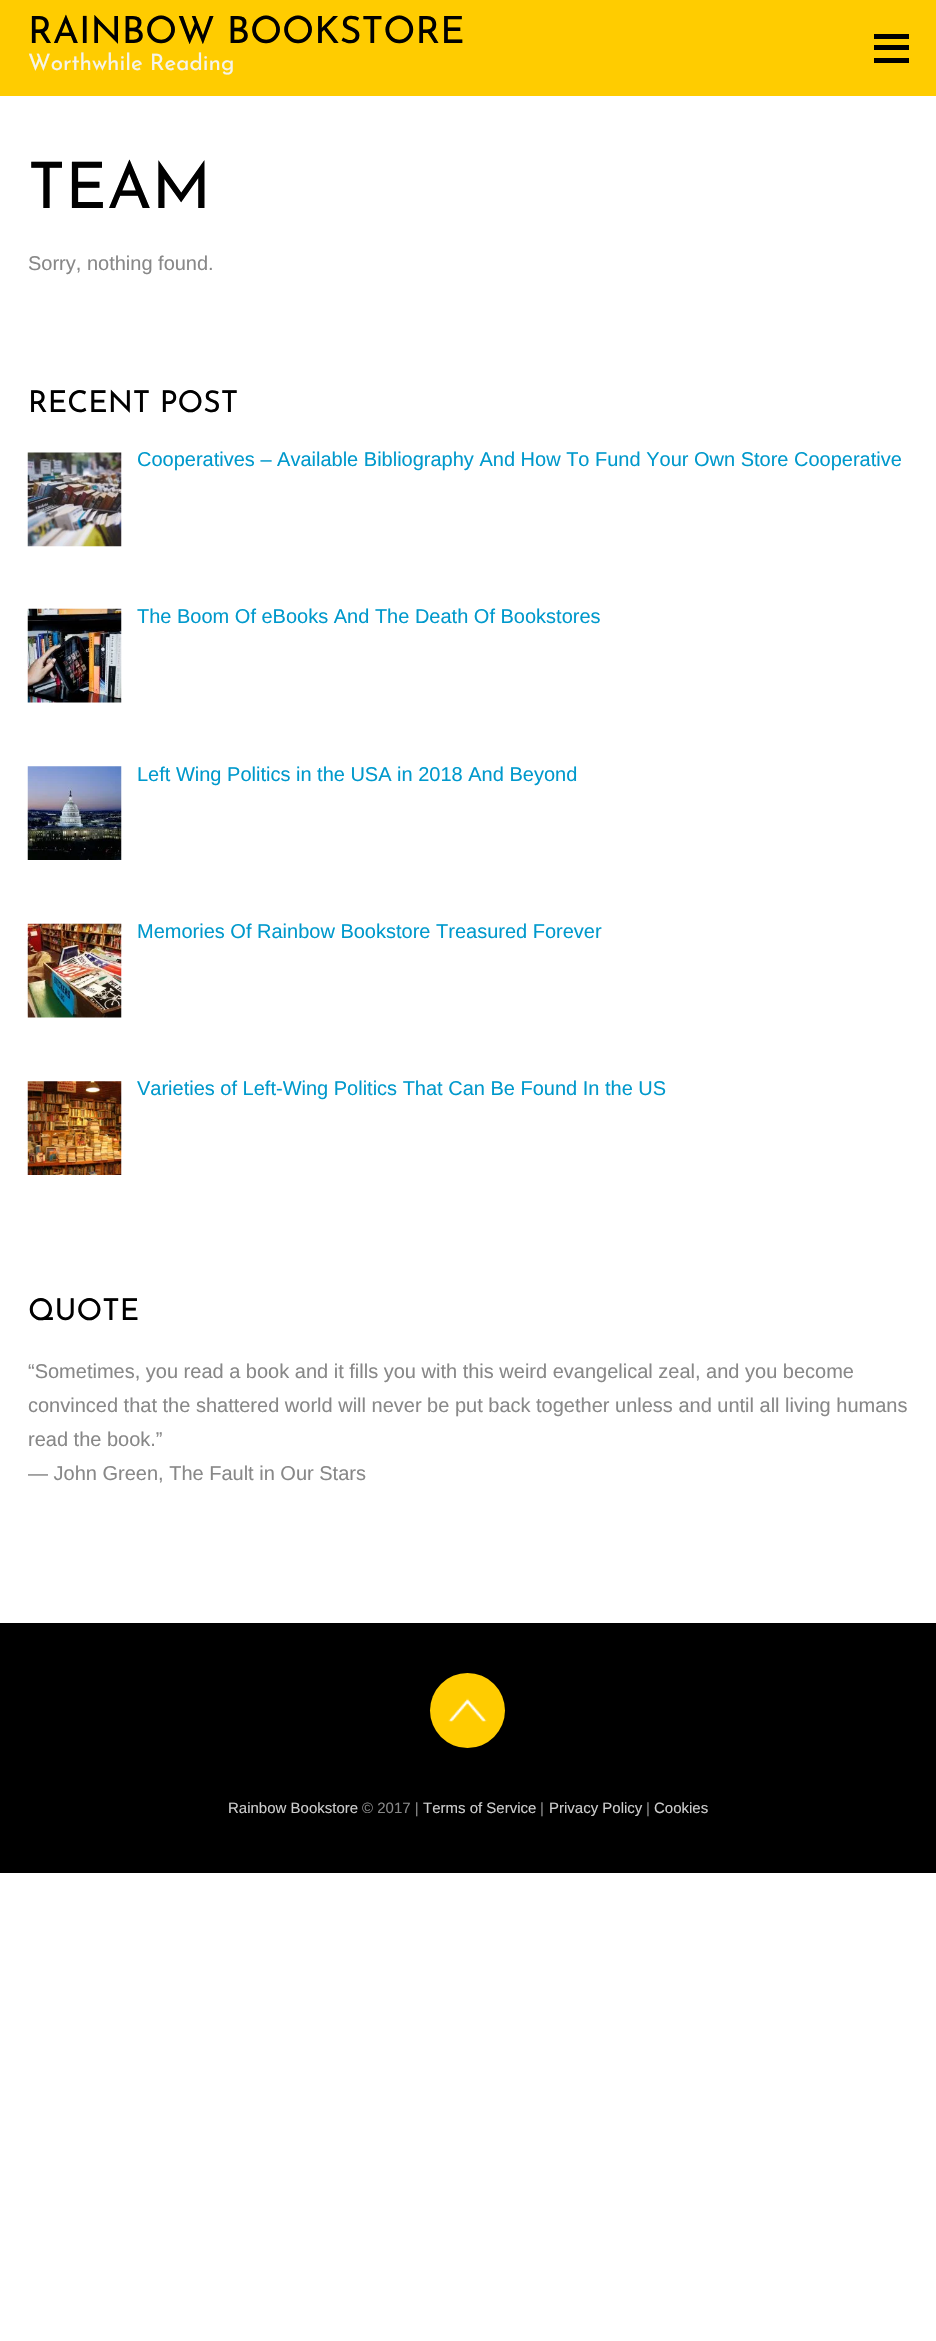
void draw(SkCanvas* canvas) {
	SkPaint paint;
	paint.setAntiAlias(true);
	canvas->clear(0xffffffff);
	paint.setColor(0xffffcc00);
	canvas->drawRect(SkRect::MakeXYWH(0, 0, 936, 96), paint);
	SkFont f1(fontMgr->matchFamilyStyle("Josefin Sans", SkFontStyle(100, SkFontStyle::kNormal_Width, SkFontStyle::kUpright_Slant)), 37.5);
	f1.setSubpixel(true);
	paint.setColor(0xff000000);
	canvas->drawString("RAINBOW BOOKSTORE", 28, 43, f1, paint);
	SkFont f2(fontMgr->matchFamilyStyle("Josefin Sans", SkFontStyle(100, SkFontStyle::kNormal_Width, SkFontStyle::kUpright_Slant)), 22.5);
	f2.setSubpixel(true);
	paint.setColor(0xfff5f4eb);
	canvas->drawString("Worthwhile Reading", 28, 70, f2, paint);
	paint.setColor(0xff000000);
	canvas->drawRect(SkRect::MakeXYWH(874, 34, 35, 5), paint);
	canvas->drawRect(SkRect::MakeXYWH(874, 58, 35, 5), paint);
	canvas->drawRect(SkRect::MakeXYWH(874, 45, 35, 5), paint);
	SkFont f3(fontMgr->matchFamilyStyle("Josefin Sans", SkFontStyle(100, SkFontStyle::kNormal_Width, SkFontStyle::kUpright_Slant)), 64);
	f3.setSubpixel(true);
	canvas->drawString("TEAM", 28, 208, f3, paint);
	SkFont f4(fontMgr->matchFamilyStyle("Liberation Sans", SkFontStyle::Normal()), 20);
	f4.setSubpixel(true);
	paint.setColor(0xff888888);
	canvas->drawString("Sorry, nothing found.", 28, 270, f4, paint);
	SkFont f5(fontMgr->matchFamilyStyle("Josefin Sans", SkFontStyle(100, SkFontStyle::kNormal_Width, SkFontStyle::kUpright_Slant)), 30);
	f5.setSubpixel(true);
	paint.setColor(0xff000000);
	canvas->drawString("RECENT POST", 28, 412, f5, paint);
	canvas->drawImageRect(SkImages::DeferredFromEncodedData(SkData::MakeFromFileName("img1.png")), SkRect::MakeXYWH(27, 452, 95, 95), SkSamplingOptions());
	paint.setColor(0xff0099cc);
	canvas->drawString("Cooperatives – Available Bibliography And How To Fund Your Own Store Cooperative", 137, 466, f4, paint);
	canvas->drawImageRect(SkImages::DeferredFromEncodedData(SkData::MakeFromFileName("img2.png")), SkRect::MakeXYWH(27, 608, 95, 95), SkSamplingOptions());
	canvas->drawString("The Boom Of eBooks And The Death Of Bookstores", 137, 623, f4, paint);
	canvas->drawImageRect(SkImages::DeferredFromEncodedData(SkData::MakeFromFileName("img3.png")), SkRect::MakeXYWH(27, 766, 95, 94), SkSamplingOptions());
	canvas->drawString("Left Wing Politics in the USA in 2018 And Beyond", 137, 781, f4, paint);
	canvas->drawImageRect(SkImages::DeferredFromEncodedData(SkData::MakeFromFileName("img4.png")), SkRect::MakeXYWH(27, 923, 95, 95), SkSamplingOptions());
	canvas->drawString("Memories Of Rainbow Bookstore Treasured Forever", 137, 938, f4, paint);
	canvas->drawImageRect(SkImages::DeferredFromEncodedData(SkData::MakeFromFileName("img5.png")), SkRect::MakeXYWH(27, 1081, 95, 94), SkSamplingOptions());
	canvas->drawString("Varieties of Left-Wing Politics That Can Be Found In the US", 137, 1095, f4, paint);
	paint.setColor(0xff000000);
	canvas->drawString("QUOTE", 28, 1320, f5, paint);
	paint.setColor(0xff888888);
	canvas->drawString("“Sometimes, you read a book and it fills you with this weird evangelical zeal, and you become", 28, 1378, f4, paint);
	canvas->drawString("convinced that the shattered world will never be put back together unless and until all living humans", 28, 1412, f4, paint);
	canvas->drawString("read the book.”", 28, 1446, f4, paint);
	canvas->drawString("― John Green, The Fault in Our Stars", 28, 1480, f4, paint);
	paint.setColor(0xff000000);
	canvas->drawRect(SkRect::MakeXYWH(0, 1623, 936, 250), paint);
	paint.setColor(0xffffcc00);
	canvas->drawCircle(467.5, 1710.5, 37.5, paint);
	canvas->drawImageRect(SkImages::DeferredFromEncodedData(SkData::MakeFromFileName("img6.png")), SkRect::MakeXYWH(448, 1698, 39, 24), SkSamplingOptions());
	SkFont f6(fontMgr->matchFamilyStyle("Liberation Sans", SkFontStyle::Normal()), 15);
	f6.setSubpixel(true);
	paint.setColor(0xffcccccc);
	canvas->drawString("Rainbow Bookstore", 228, 1813, f6, paint);
	paint.setColor(0xff888888);
	canvas->drawString("© 2017 |", 362, 1813, f6, paint);
	paint.setColor(0xffcccccc);
	canvas->drawString("Terms of Service", 423, 1813, f6, paint);
	paint.setColor(0xff888888);
	canvas->drawString("|", 540, 1813, f6, paint);
	paint.setColor(0xffcccccc);
	canvas->drawString("Privacy Policy", 549, 1813, f6, paint);
	paint.setColor(0xff888888);
	canvas->drawString("|", 646, 1813, f6, paint);
	paint.setColor(0xffcccccc);
	canvas->drawString("Cookies", 654, 1813, f6, paint);
}
